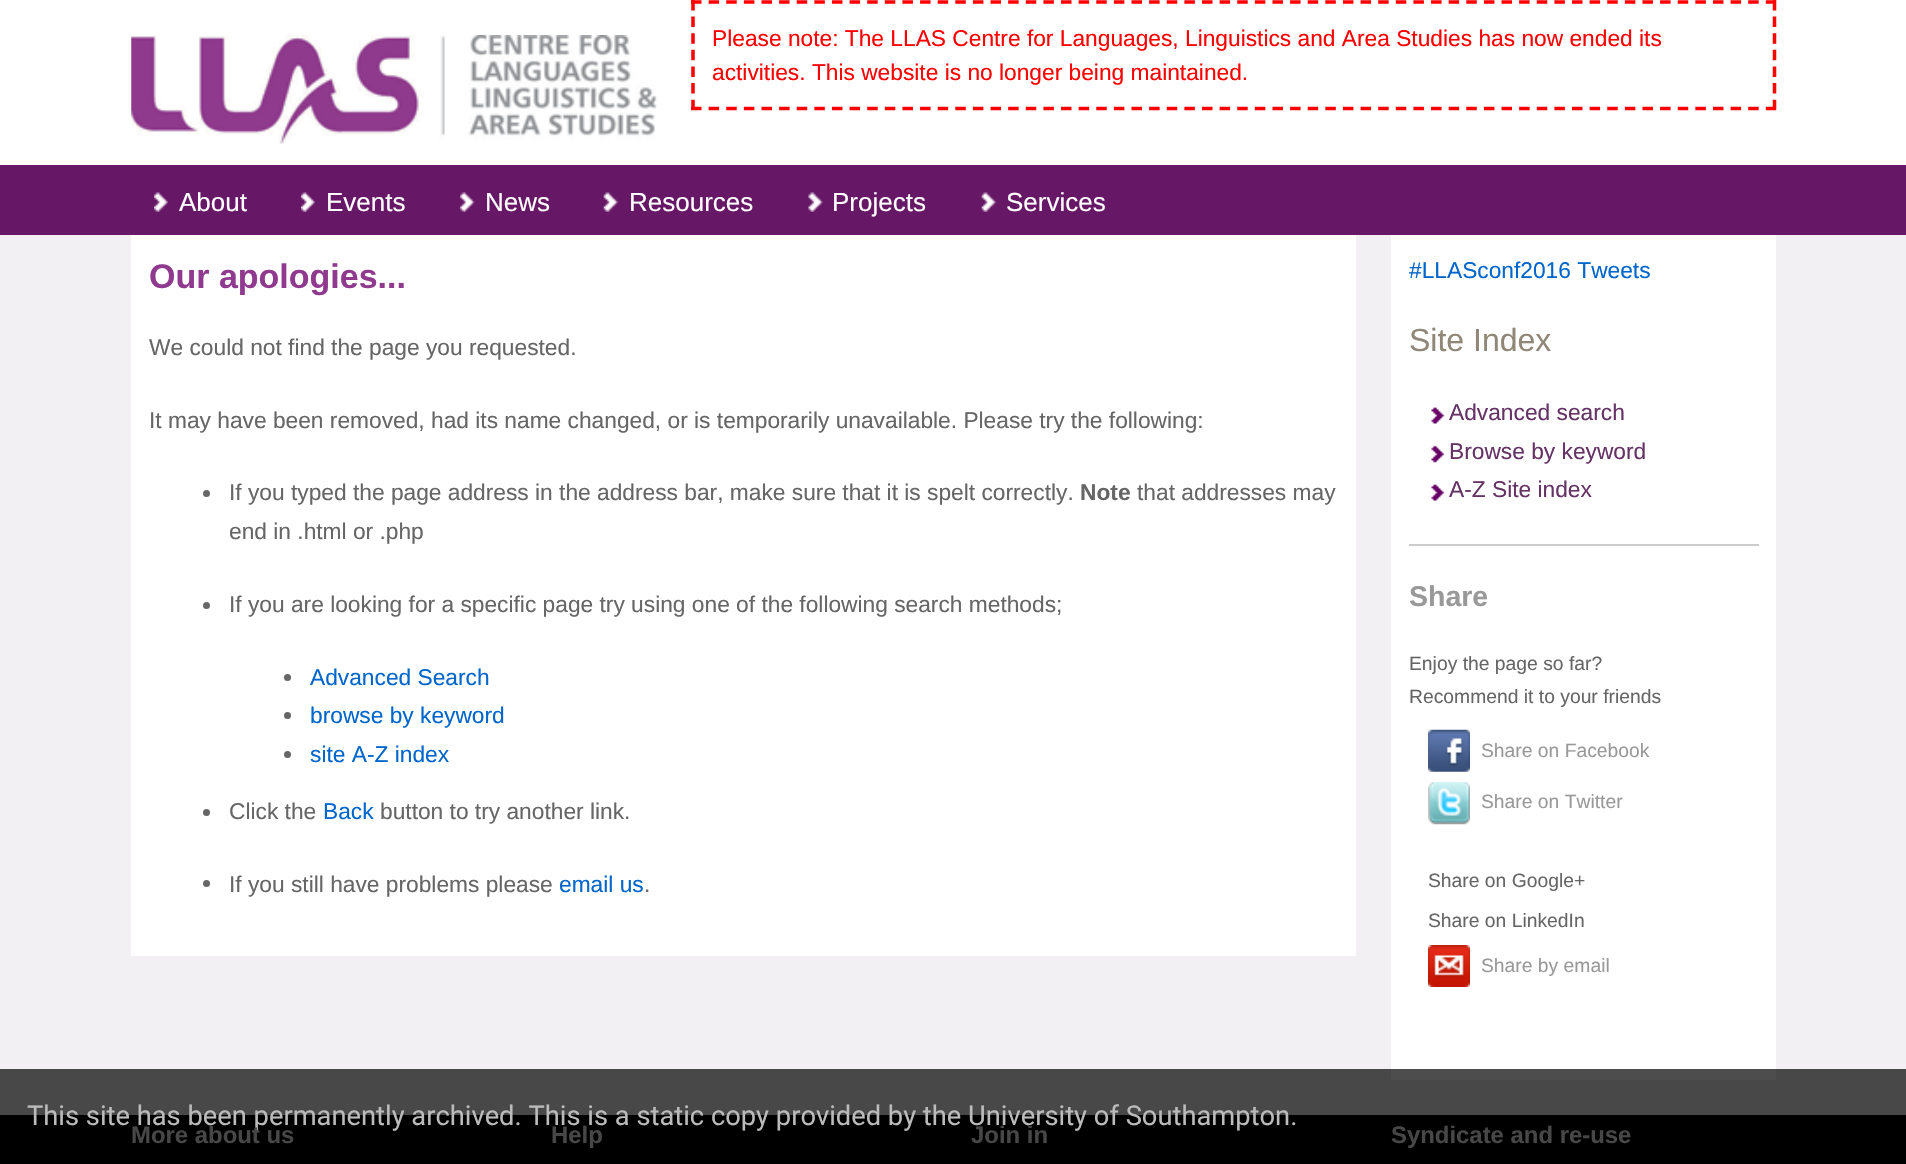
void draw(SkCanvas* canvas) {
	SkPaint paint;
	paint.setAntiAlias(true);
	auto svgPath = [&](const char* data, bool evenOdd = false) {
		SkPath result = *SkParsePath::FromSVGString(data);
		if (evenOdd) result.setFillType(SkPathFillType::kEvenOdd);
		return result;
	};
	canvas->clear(0xfff2f0f2);
	paint.setColor(0xff494849);
	canvas->drawRect(SkRect::MakeXYWH(0, 1069, 1906, 46), paint);
	paint.setColor(0xffffffff);
	canvas->drawRect(SkRect::MakeXYWH(0, 0, 1906, 165), paint);
	canvas->drawImageRect(SkImages::DeferredFromEncodedData(SkData::MakeFromFileName("img1.png")), SkRect::MakeXYWH(131, 35, 526, 109), SkSamplingOptions());
	paint.setStroke(true);
	paint.setStrokeWidth(3.5);
	paint.setColor(0xffff0000);
	paint.setPathEffect(SkDashPathEffect::Make({{10.5f, 7.12f}}, 0));
	canvas->drawPath(svgPath("M691 2H1776"), paint);
	paint.setPathEffect(nullptr);
	paint.setPathEffect(SkDashPathEffect::Make({{10.5f, 6.12f}}, 0));
	canvas->drawPath(svgPath("M1774.5 0V110"), paint);
	paint.setPathEffect(nullptr);
	paint.setPathEffect(SkDashPathEffect::Make({{10.5f, 7.12f}}, 0));
	canvas->drawPath(svgPath("M691 108.5H1776"), paint);
	paint.setPathEffect(nullptr);
	paint.setPathEffect(SkDashPathEffect::Make({{10.5f, 6.12f}}, 0));
	canvas->drawPath(svgPath("M693 0V110"), paint);
	paint.setPathEffect(nullptr);
	SkFont f1(fontMgr->matchFamilyStyle("Liberation Sans", SkFontStyle::Normal()), 22.75);
	f1.setSubpixel(true);
	paint.setStroke(false);
	canvas->drawString("Please note: The LLAS Centre for Languages, Linguistics and Area Studies has now ended its", 712, 46, f1, paint);
	canvas->drawString("activities. This website is no longer being maintained.", 712, 80, f1, paint);
	paint.setColor(0xff661766);
	canvas->drawRect(SkRect::MakeXYWH(0, 165, 1906, 70), paint);
	canvas->drawImageRect(SkImages::DeferredFromEncodedData(SkData::MakeFromFileName("img2.png")), SkRect::MakeXYWH(154, 192, 14, 20), SkSamplingOptions());
	SkFont f2(fontMgr->matchFamilyStyle("Liberation Sans", SkFontStyle::Normal()), 26);
	f2.setSubpixel(true);
	paint.setColor(0xffffffff);
	canvas->drawString("About", 179, 211, f2, paint);
	canvas->drawImageRect(SkImages::DeferredFromEncodedData(SkData::MakeFromFileName("img3.png")), SkRect::MakeXYWH(301, 192, 14, 20), SkSamplingOptions());
	canvas->drawString("Events", 326, 211, f2, paint);
	canvas->drawImageRect(SkImages::DeferredFromEncodedData(SkData::MakeFromFileName("img4.png")), SkRect::MakeXYWH(460, 192, 15, 20), SkSamplingOptions());
	canvas->drawString("News", 485, 211, f2, paint);
	canvas->drawImageRect(SkImages::DeferredFromEncodedData(SkData::MakeFromFileName("img5.png")), SkRect::MakeXYWH(603, 192, 15, 20), SkSamplingOptions());
	canvas->drawString("Resources", 629, 211, f2, paint);
	canvas->drawImageRect(SkImages::DeferredFromEncodedData(SkData::MakeFromFileName("img6.png")), SkRect::MakeXYWH(808, 192, 15, 20), SkSamplingOptions());
	canvas->drawString("Projects", 832, 211, f2, paint);
	canvas->drawImageRect(SkImages::DeferredFromEncodedData(SkData::MakeFromFileName("img5.png")), SkRect::MakeXYWH(981, 192, 15, 20), SkSamplingOptions());
	canvas->drawString("Services", 1006, 211, f2, paint);
	canvas->drawRect(SkRect::MakeXYWH(131, 235, 1225, 721), paint);
	SkFont f3(fontMgr->matchFamilyStyle("Liberation Sans", SkFontStyle::Bold()), 34);
	f3.setSubpixel(true);
	paint.setColor(0xff8f3a8e);
	canvas->drawString("Our apologies...", 149, 288, f3, paint);
	paint.setColor(0xff666666);
	canvas->drawString("We could not find the page you requested.", 149, 355, f1, paint);
	canvas->drawString("It may have been removed, had its name changed, or is temporarily unavailable. Please try the following:", 149, 428, f1, paint);
	canvas->drawCircle(206.5, 493.5, 3.5, paint);
	canvas->drawString("If you typed the page address in the address bar, make sure that it is spelt correctly.", 229, 500, f1, paint);
	SkFont f4(fontMgr->matchFamilyStyle("Liberation Sans", SkFontStyle::Bold()), 22.75);
	f4.setSubpixel(true);
	canvas->drawString("Note", 1080, 500, f4, paint);
	canvas->drawString("that addresses may", 1137, 500, f1, paint);
	canvas->drawString("end in .html or .php", 229, 539, f1, paint);
	canvas->drawCircle(206.5, 605.5, 3.5, paint);
	canvas->drawString("If you are looking for a specific page try using one of the following search methods;", 229, 612, f1, paint);
	canvas->drawCircle(287.5, 677.5, 3.5, paint);
	paint.setColor(0xff0066cc);
	canvas->drawString("Advanced Search", 310, 685, f1, paint);
	paint.setColor(0xff666666);
	canvas->drawCircle(287.5, 715.5, 3.5, paint);
	paint.setColor(0xff0066cc);
	canvas->drawString("browse by keyword", 310, 723, f1, paint);
	paint.setColor(0xff666666);
	canvas->drawCircle(287.5, 754.5, 3.5, paint);
	paint.setColor(0xff0066cc);
	canvas->drawString("site A-Z index", 310, 762, f1, paint);
	paint.setColor(0xff666666);
	canvas->drawCircle(206.5, 812.5, 3.5, paint);
	canvas->drawString("Click the", 229, 819, f1, paint);
	paint.setColor(0xff0066cc);
	canvas->drawString("Back", 323, 819, f1, paint);
	paint.setColor(0xff666666);
	canvas->drawString("button to try another link.", 380, 819, f1, paint);
	canvas->drawCircle(206.5, 883.5, 3.5, paint);
	canvas->drawString("If you still have problems please", 229, 892, f1, paint);
	paint.setColor(0xff0066cc);
	canvas->drawString("email us", 559, 892, f1, paint);
	paint.setColor(0xff666666);
	canvas->drawString(".", 644, 892, f1, paint);
	paint.setColor(0xffffffff);
	canvas->drawRect(SkRect::MakeXYWH(1391, 235, 385, 834), paint);
	paint.setColor(0xff4d4d4d);
	canvas->drawRect(SkRect::MakeXYWH(1391, 1069, 385, 11), paint);
	paint.setColor(0xff0066cc);
	canvas->drawString("#LLASconf2016 Tweets", 1409, 278, f1, paint);
	paint.setColor(0xffcccccc);
	canvas->drawRect(SkRect::MakeXYWH(1409, 544, 350, 2), paint);
	SkFont f5(fontMgr->matchFamilyStyle("Liberation Sans", SkFontStyle::Normal()), 32);
	f5.setSubpixel(true);
	paint.setColor(0xff908778);
	canvas->drawString("Site Index", 1409, 351, f5, paint);
	canvas->drawImageRect(SkImages::DeferredFromEncodedData(SkData::MakeFromFileName("img7.png")), SkRect::MakeXYWH(1431, 407, 14, 17), SkSamplingOptions());
	paint.setColor(0xff663366);
	canvas->drawString("Advanced search", 1449, 420, f1, paint);
	canvas->drawImageRect(SkImages::DeferredFromEncodedData(SkData::MakeFromFileName("img8.png")), SkRect::MakeXYWH(1431, 445, 14, 18), SkSamplingOptions());
	canvas->drawString("Browse by keyword", 1449, 459, f1, paint);
	canvas->drawImageRect(SkImages::DeferredFromEncodedData(SkData::MakeFromFileName("img7.png")), SkRect::MakeXYWH(1431, 484, 14, 17), SkSamplingOptions());
	canvas->drawString("A-Z Site index", 1449, 497, f1, paint);
	SkFont f6(fontMgr->matchFamilyStyle("Liberation Sans", SkFontStyle::Bold()), 28.5);
	f6.setSubpixel(true);
	paint.setColor(0xff999999);
	canvas->drawString("Share", 1409, 606, f6, paint);
	SkFont f7(fontMgr->matchFamilyStyle("Liberation Sans", SkFontStyle::Normal()), 19.3);
	f7.setSubpixel(true);
	paint.setColor(0xff666666);
	canvas->drawString("Enjoy the page so far?", 1409, 670, f7, paint);
	canvas->drawString("Recommend it to your friends", 1409, 703, f7, paint);
	canvas->drawImageRect(SkImages::DeferredFromEncodedData(SkData::MakeFromFileName("img9.png")), SkRect::MakeXYWH(1428, 729, 42, 43), SkSamplingOptions());
	paint.setColor(0xff999999);
	canvas->drawString("Share on Facebook", 1481, 757, f7, paint);
	canvas->drawImageRect(SkImages::DeferredFromEncodedData(SkData::MakeFromFileName("img10.png")), SkRect::MakeXYWH(1428, 782, 42, 43), SkSamplingOptions());
	canvas->drawString("Share on Twitter", 1481, 808, f7, paint);
	paint.setColor(0xff666666);
	canvas->drawString("Share on Google+", 1428, 887, f7, paint);
	canvas->drawString("Share on LinkedIn", 1428, 927, f7, paint);
	canvas->drawImageRect(SkImages::DeferredFromEncodedData(SkData::MakeFromFileName("img11.png")), SkRect::MakeXYWH(1428, 945, 42, 42), SkSamplingOptions());
	paint.setColor(0xff999999);
	canvas->drawString("Share by email", 1481, 972, f7, paint);
	paint.setColor(0xff000000);
	canvas->drawRect(SkRect::MakeXYWH(0, 1115, 1906, 49), paint);
	SkFont f8(fontMgr->matchFamilyStyle("Roboto", SkFontStyle::Normal()), 27.3);
	f8.setSubpixel(true);
	paint.setColor(0xffbbbbbb);
	canvas->drawString("This site has been permanently archived. This is a static copy provided by the University of Southampton.", 27, 1125, f8, paint);
	SkFont f9(fontMgr->matchFamilyStyle("Liberation Sans", SkFontStyle::Bold()), 23.9);
	f9.setSubpixel(true);
	paint.setColor(0xff474747);
	canvas->drawString("More about us", 131, 1143, f9, paint);
	canvas->drawString("Help", 551, 1143, f9, paint);
	canvas->drawString("Join in", 971, 1143, f9, paint);
	canvas->drawString("Syndicate and re-use", 1391, 1143, f9, paint);
}
